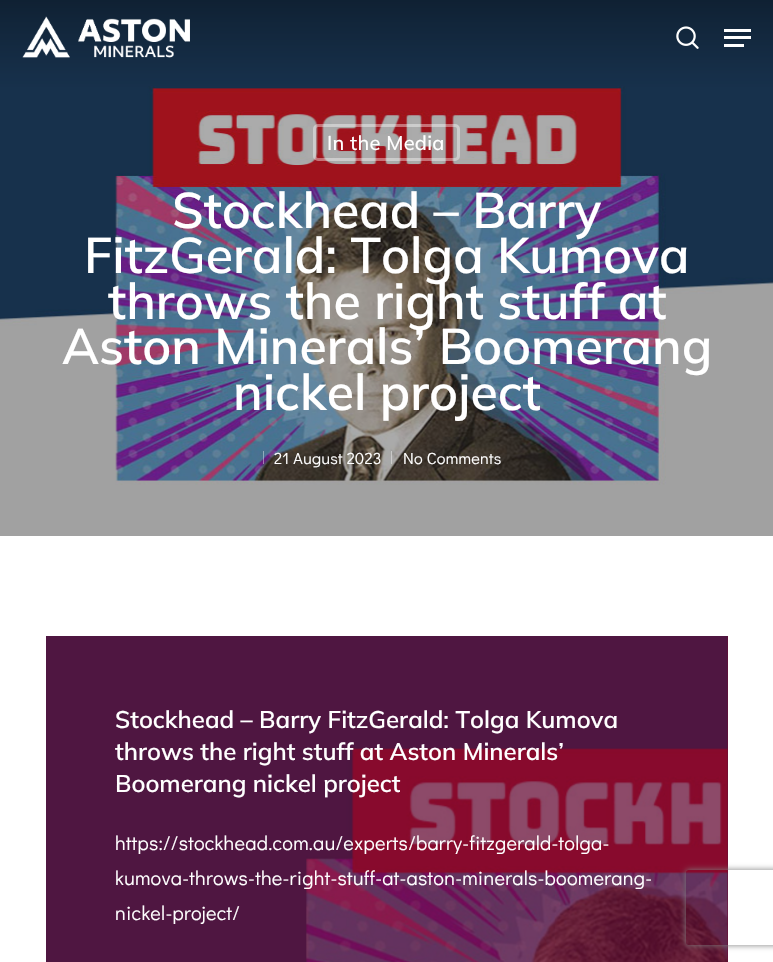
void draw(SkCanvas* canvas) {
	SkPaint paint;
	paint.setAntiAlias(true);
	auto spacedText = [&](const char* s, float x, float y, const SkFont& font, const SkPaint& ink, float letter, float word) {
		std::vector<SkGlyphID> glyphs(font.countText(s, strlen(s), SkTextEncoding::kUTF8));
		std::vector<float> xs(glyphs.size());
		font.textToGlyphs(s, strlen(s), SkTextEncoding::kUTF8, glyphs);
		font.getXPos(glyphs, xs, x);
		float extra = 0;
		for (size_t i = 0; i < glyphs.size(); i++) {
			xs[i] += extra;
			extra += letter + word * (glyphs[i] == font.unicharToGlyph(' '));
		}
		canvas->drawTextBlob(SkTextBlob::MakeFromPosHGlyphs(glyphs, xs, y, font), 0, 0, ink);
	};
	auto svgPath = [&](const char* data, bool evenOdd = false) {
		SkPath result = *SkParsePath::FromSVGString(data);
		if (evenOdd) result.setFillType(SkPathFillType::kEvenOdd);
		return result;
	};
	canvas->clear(0xffffffff);
	canvas->drawImageRect(SkImages::DeferredFromEncodedData(SkData::MakeFromFileName("img3.png")), SkRect::MakeXYWH(0, 0, 773, 536), SkSamplingOptions());
	canvas->drawImageRect(SkImages::DeferredFromEncodedData(SkData::MakeFromFileName("img1.png")), SkRect::MakeXYWH(22, 16, 168, 42), SkSamplingOptions());
	canvas->drawImageRect(SkImages::DeferredFromEncodedData(SkData::MakeFromFileName("img2.png")), SkRect::MakeXYWH(676, 26, 23, 23), SkSamplingOptions());
	paint.setColor(0xffffffff);
	canvas->drawRect(SkRect::MakeXYWH(724, 29, 27, 3), paint);
	canvas->drawRect(SkRect::MakeXYWH(724, 44, 20, 3), paint);
	canvas->drawRect(SkRect::MakeXYWH(724, 36, 27, 3), paint);
	paint.setStroke(true);
	paint.setStrokeWidth(3);
	paint.setColor(0x66ffffff);
	canvas->drawRoundRect(SkRect::MakeXYWH(314.5, 125.5, 144, 34), 3.5, 3.5, paint);
	SkFont f1(fontMgr->matchFamilyStyle("Mulish", SkFontStyle(500, SkFontStyle::kNormal_Width, SkFontStyle::kUpright_Slant)), 20);
	f1.setSubpixel(true);
	paint.setStroke(false);
	paint.setColor(0xffffffff);
	spacedText("In the Media", 327, 150, f1, paint, 0.25, 0);
	SkFont f2(fontMgr->matchFamilyStyle("Mulish", SkFontStyle(600, SkFontStyle::kNormal_Width, SkFontStyle::kUpright_Slant)), 50);
	f2.setSubpixel(true);
	canvas->drawString("Stockhead – Barry", 172, 228, f2, paint);
	canvas->drawString("FitzGerald: Tolga Kumova", 84, 273, f2, paint);
	canvas->drawString("throws the right stuff at", 108, 319, f2, paint);
	canvas->drawString("Aston Minerals’ Boomerang", 62, 364, f2, paint);
	canvas->drawString("nickel project", 233, 410, f2, paint);
	paint.setColor(0x66ffffff);
	canvas->drawRect(SkRect::MakeXYWH(263, 451, 1, 13), paint);
	SkFont f3(fontMgr->matchFamilyStyle("Didact Gothic", SkFontStyle::Normal()), 16.25);
	f3.setSubpixel(true);
	paint.setColor(0xffffffff);
	spacedText("21 August 2023", 274, 464, f3, paint, 0.25, 0);
	paint.setColor(0x66ffffff);
	canvas->drawRect(SkRect::MakeXYWH(391, 451, 1, 13), paint);
	paint.setColor(0xffffffff);
	spacedText("No Comments", 403, 464, f3, paint, 0.25, 0);
	paint.setColor(0xff670d36);
	canvas->drawRect(SkRect::MakeXYWH(46, 636, 682, 326), paint);
	canvas->drawImageRect(SkImages::DeferredFromEncodedData(SkData::MakeFromFileName("img4.png")), SkRect::MakeXYWH(46, 636, 682, 326), SkSamplingOptions());
	SkFont f4(fontMgr->matchFamilyStyle("Mulish", SkFontStyle(600, SkFontStyle::kNormal_Width, SkFontStyle::kUpright_Slant)), 24);
	f4.setSubpixel(true);
	paint.setColor(0xffffffff);
	canvas->drawString("Stockhead – Barry FitzGerald: Tolga Kumova", 115, 728, f4, paint);
	canvas->drawString("throws the right stuff at Aston Minerals’", 115, 760, f4, paint);
	canvas->drawString("Boomerang nickel project", 115, 792, f4, paint);
	SkFont f5(fontMgr->matchFamilyStyle("Didact Gothic", SkFontStyle::Normal()), 20);
	f5.setSubpixel(true);
	spacedText("https://stockhead.com.au/experts/barry-fitzgerald-tolga-", 115, 850, f5, paint, 0.25, 0);
	spacedText("kumova-throws-the-right-stuff-at-aston-minerals-boomerang-", 115, 885, f5, paint, 0.25, 0);
	spacedText("nickel-project/", 115, 920, f5, paint, 0.25, 0);
	canvas->save();
	canvas->clipPath(svgPath("M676 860H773V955H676ZM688.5 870H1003.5C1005 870 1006 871 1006 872.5V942.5C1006 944 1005 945 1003.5 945H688.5C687 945 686 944 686 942.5V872.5C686 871 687 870 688.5 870Z", true), true);
	paint.setColor(0xff808080);
	paint.setMaskFilter(SkMaskFilter::MakeBlur(kNormal_SkBlurStyle, 3));
	canvas->drawRoundRect(SkRect::MakeXYWH(686, 870, 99, 75), 2.5, 2.5, paint);
	paint.setMaskFilter(nullptr);
	canvas->restore();
}
